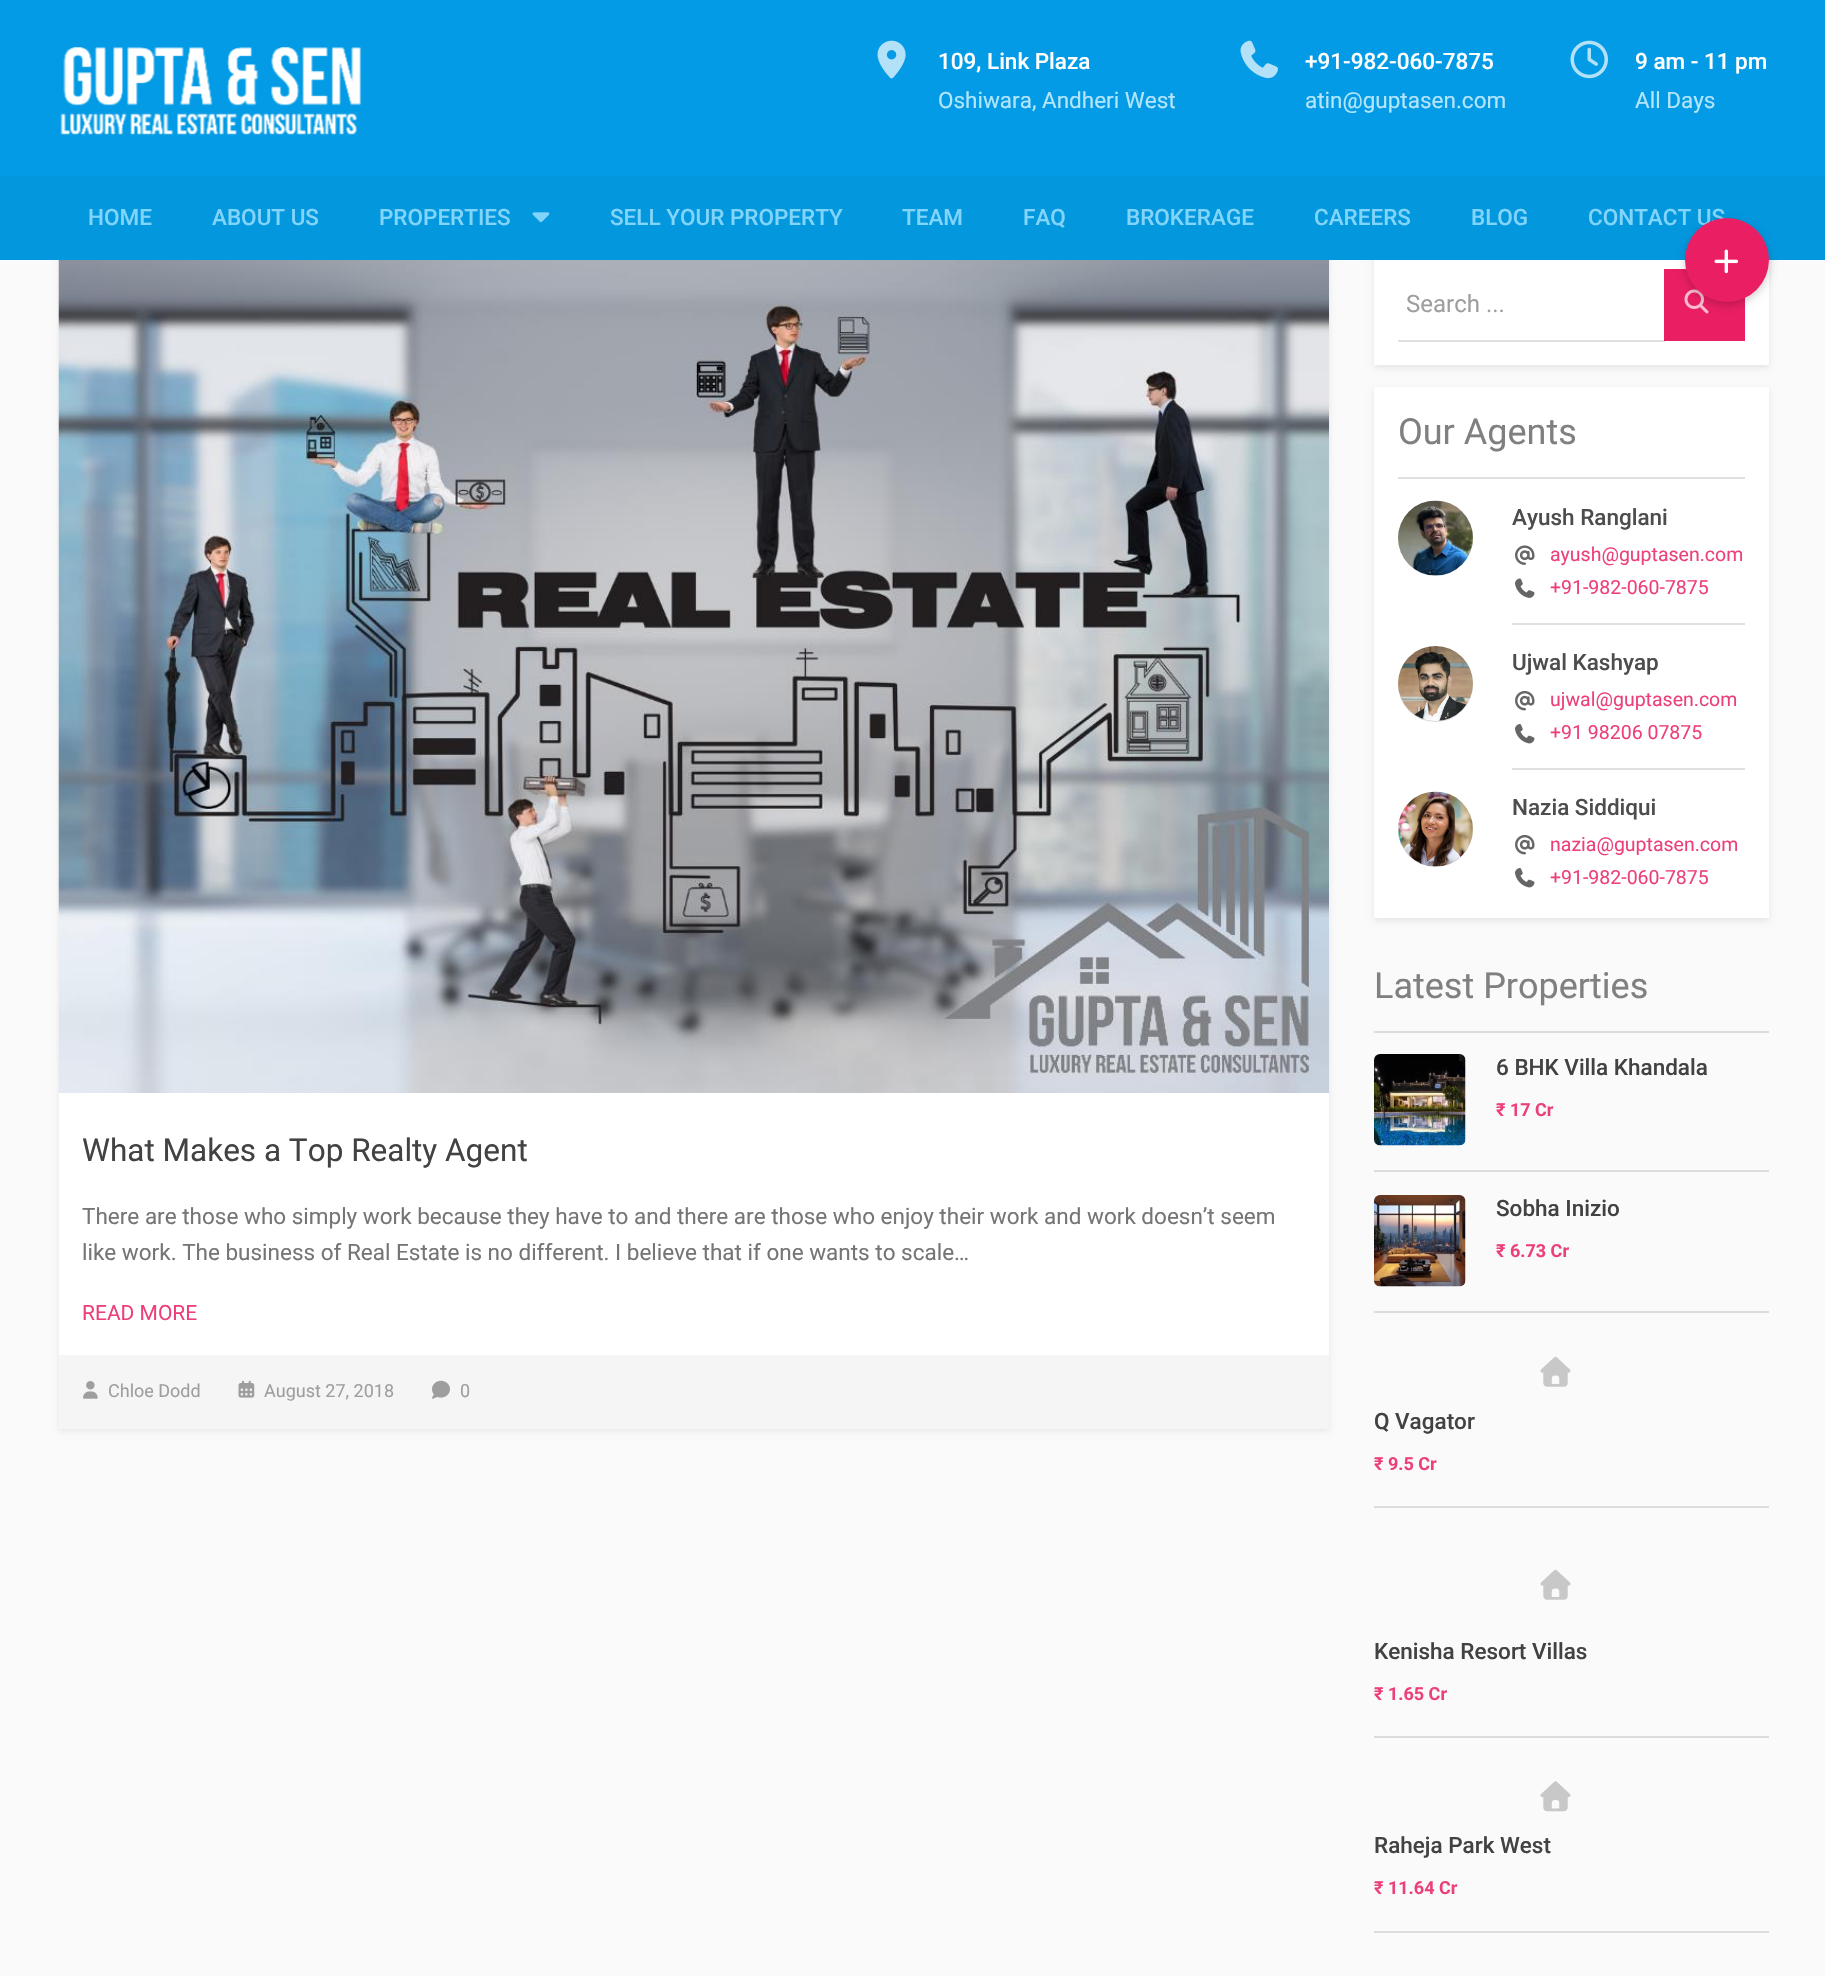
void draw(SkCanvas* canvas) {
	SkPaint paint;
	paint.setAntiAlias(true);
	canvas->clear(0xfffafafa);
	paint.setColor(0xff039be5);
	canvas->drawRect(SkRect::MakeXYWH(0, 0, 1825, 176), paint);
	canvas->drawImageRect(SkImages::DeferredFromEncodedData(SkData::MakeFromFileName("img1.png")), SkRect::MakeXYWH(60, 47, 302, 88), SkSamplingOptions());
	canvas->drawImageRect(SkImages::DeferredFromEncodedData(SkData::MakeFromFileName("img2.png")), SkRect::MakeXYWH(877, 40, 29, 39), SkSamplingOptions());
	SkFont f1(fontMgr->matchFamilyStyle("Roboto", SkFontStyle(500, SkFontStyle::kNormal_Width, SkFontStyle::kUpright_Slant)), 22.5);
	f1.setSubpixel(true);
	paint.setColor(0xffffffff);
	canvas->drawString("109, Link Plaza", 938, 69, f1, paint);
	SkFont f2(fontMgr->matchFamilyStyle("Roboto", SkFontStyle::Normal()), 22.5);
	f2.setSubpixel(true);
	paint.setColor(0xffb3e5fc);
	canvas->drawString("Oshiwara, Andheri West", 938, 108, f2, paint);
	canvas->drawImageRect(SkImages::DeferredFromEncodedData(SkData::MakeFromFileName("img3.png")), SkRect::MakeXYWH(1240, 40, 38, 39), SkSamplingOptions());
	paint.setColor(0xffffffff);
	canvas->drawString("+91-982-060-7875", 1305, 69, f1, paint);
	paint.setColor(0xffb3e5fc);
	canvas->drawString("atin@guptasen.com", 1305, 108, f2, paint);
	canvas->drawImageRect(SkImages::DeferredFromEncodedData(SkData::MakeFromFileName("img4.png")), SkRect::MakeXYWH(1570, 40, 38, 39), SkSamplingOptions());
	paint.setColor(0xffffffff);
	canvas->drawString("9 am - 11 pm", 1635, 69, f1, paint);
	paint.setColor(0xffb3e5fc);
	canvas->drawString("All Days", 1635, 108, f2, paint);
	paint.setColor(0x14000000);
	paint.setMaskFilter(SkMaskFilter::MakeBlur(kNormal_SkBlurStyle, 3));
	canvas->drawRect(SkRect::MakeXYWH(59, 248, 1270, 1183), paint);
	paint.setMaskFilter(nullptr);
	paint.setMaskFilter(SkMaskFilter::MakeBlur(kNormal_SkBlurStyle, 3));
	canvas->drawRect(SkRect::MakeXYWH(1374, 248, 395, 120), paint);
	paint.setMaskFilter(nullptr);
	paint.setColor(0xff0397de);
	canvas->drawRect(SkRect::MakeXYWH(0, 176, 1825, 84), paint);
	paint.setColor(0xff81d4fa);
	canvas->drawString("HOME", 88, 225, f1, paint);
	canvas->drawString("ABOUT US", 212, 225, f1, paint);
	canvas->drawString("PROPERTIES", 379, 225, f1, paint);
	canvas->drawImageRect(SkImages::DeferredFromEncodedData(SkData::MakeFromFileName("img5.png")), SkRect::MakeXYWH(532, 212, 18, 11), SkSamplingOptions());
	canvas->drawString("SELL YOUR PROPERTY", 610, 225, f1, paint);
	canvas->drawString("TEAM", 902, 225, f1, paint);
	canvas->drawString("FAQ", 1023, 225, f1, paint);
	canvas->drawString("BROKERAGE", 1126, 225, f1, paint);
	canvas->drawString("CAREERS", 1314, 225, f1, paint);
	canvas->drawString("BLOG", 1471, 225, f1, paint);
	canvas->drawString("CONTACT US", 1588, 225, f1, paint);
	paint.setColor(0xffffffff);
	canvas->drawRect(SkRect::MakeXYWH(1374, 260, 395, 105), paint);
	paint.setColor(0xffe0e0e0);
	canvas->drawRect(SkRect::MakeXYWH(1398, 340, 267, 2), paint);
	paint.setColor(0xffe91e63);
	canvas->drawRect(SkRect::MakeXYWH(1664, 269, 81, 72), paint);
	canvas->drawImageRect(SkImages::DeferredFromEncodedData(SkData::MakeFromFileName("img11.png")), SkRect::MakeXYWH(1684, 289, 25, 25), SkSamplingOptions());
	paint.setColor(0x33000000);
	paint.setMaskFilter(SkMaskFilter::MakeBlur(kNormal_SkBlurStyle, 4));
	canvas->drawRoundRect(SkRect::MakeXYWH(1685, 221, 84, 84), 42, 42, paint);
	paint.setMaskFilter(nullptr);
	paint.setColor(0xffe91e63);
	canvas->drawCircle(1727, 260, 42, paint);
	canvas->drawImageRect(SkImages::DeferredFromEncodedData(SkData::MakeFromFileName("img6.png")), SkRect::MakeXYWH(1714, 249, 25, 25), SkSamplingOptions());
	paint.setColor(0xffffffff);
	canvas->drawRect(SkRect::MakeXYWH(59, 1093, 1270, 262), paint);
	paint.setColor(0xfff5f5f5);
	canvas->drawRect(SkRect::MakeXYWH(59, 1355, 1270, 74), paint);
	canvas->drawImageRect(SkImages::DeferredFromEncodedData(SkData::MakeFromFileName("img7.png")), SkRect::MakeXYWH(58, 260, 1271, 833), SkSamplingOptions());
	SkFont f3(fontMgr->matchFamilyStyle("Roboto", SkFontStyle::Normal()), 31.5);
	f3.setSubpixel(true);
	paint.setColor(0xff424242);
	canvas->drawString("What Makes a Top Realty Agent", 82, 1161, f3, paint);
	paint.setColor(0xff757575);
	canvas->drawString("There are those who simply work because they have to and there are those who enjoy their work and work doesn’t seem", 82, 1224, f2, paint);
	canvas->drawString("like work. The business of Real Estate is no different. I believe that if one wants to scale…", 82, 1260, f2, paint);
	SkFont f4(fontMgr->matchFamilyStyle("Roboto", SkFontStyle::Normal()), 21);
	f4.setSubpixel(true);
	paint.setColor(0xffec407a);
	canvas->drawString("READ MORE", 82, 1320, f4, paint);
	canvas->drawImageRect(SkImages::DeferredFromEncodedData(SkData::MakeFromFileName("img8.png")), SkRect::MakeXYWH(83, 1381, 15, 18), SkSamplingOptions());
	SkFont f5(fontMgr->matchFamilyStyle("Roboto", SkFontStyle::Normal()), 18);
	f5.setSubpixel(true);
	paint.setColor(0xff9e9e9e);
	canvas->drawString("Chloe Dodd", 108, 1397, f5, paint);
	canvas->drawImageRect(SkImages::DeferredFromEncodedData(SkData::MakeFromFileName("img9.png")), SkRect::MakeXYWH(238, 1380, 17, 18), SkSamplingOptions());
	canvas->drawString("August 27, 2018", 264, 1397, f5, paint);
	canvas->drawImageRect(SkImages::DeferredFromEncodedData(SkData::MakeFromFileName("img10.png")), SkRect::MakeXYWH(432, 1380, 18, 19), SkSamplingOptions());
	canvas->drawString("0", 460, 1397, f5, paint);
	SkFont f6(fontMgr->matchFamilyStyle("Roboto", SkFontStyle::Normal()), 24);
	f6.setSubpixel(true);
	canvas->drawString("Search ...", 1406, 312, f6, paint);
	paint.setColor(0xffcd1a57);
	canvas->drawRect(SkRect::MakeXYWH(1664, 340, 1, 1), paint);
	paint.setColor(0x14000000);
	paint.setMaskFilter(SkMaskFilter::MakeBlur(kNormal_SkBlurStyle, 3));
	canvas->drawRect(SkRect::MakeXYWH(1374, 390, 395, 531), paint);
	paint.setMaskFilter(nullptr);
	paint.setColor(0xffffffff);
	canvas->drawRect(SkRect::MakeXYWH(1374, 387, 395, 531), paint);
	paint.setColor(0xffe0e0e0);
	canvas->drawRect(SkRect::MakeXYWH(1398, 477, 347, 2), paint);
	SkFont f7(fontMgr->matchFamilyStyle("Roboto", SkFontStyle::Normal()), 36);
	f7.setSubpixel(true);
	paint.setColor(0xff808080);
	canvas->drawString("Our Agents", 1398, 444, f7, paint);
	paint.setColor(0xffd9d9d9);
	canvas->drawCircle(1435.5, 538.5, 37.5, paint);
	canvas->drawImageRect(SkImages::DeferredFromEncodedData(SkData::MakeFromFileName("img12.png")), SkRect::MakeXYWH(1398, 500, 75, 76), SkSamplingOptions());
	paint.setColor(0xffe0e0e0);
	canvas->drawRect(SkRect::MakeXYWH(1512, 623, 233, 2), paint);
	paint.setColor(0xff4d4d4d);
	canvas->drawString("Ayush Ranglani", 1512, 525, f1, paint);
	canvas->drawImageRect(SkImages::DeferredFromEncodedData(SkData::MakeFromFileName("img13.png")), SkRect::MakeXYWH(1515, 545, 20, 20), SkSamplingOptions());
	SkFont f8(fontMgr->matchFamilyStyle("Roboto", SkFontStyle::Normal()), 19.5);
	f8.setSubpixel(true);
	paint.setColor(0xffec407a);
	canvas->drawString("ayush@guptasen.com", 1550, 561, f8, paint);
	canvas->drawImageRect(SkImages::DeferredFromEncodedData(SkData::MakeFromFileName("img14.png")), SkRect::MakeXYWH(1515, 578, 20, 20), SkSamplingOptions());
	canvas->drawString("+91-982-060-7875", 1550, 594, f8, paint);
	paint.setColor(0xffd9d9d9);
	canvas->drawCircle(1435.5, 684.5, 37.5, paint);
	canvas->drawImageRect(SkImages::DeferredFromEncodedData(SkData::MakeFromFileName("img15.png")), SkRect::MakeXYWH(1398, 646, 75, 75), SkSamplingOptions());
	paint.setColor(0xffe0e0e0);
	canvas->drawRect(SkRect::MakeXYWH(1512, 768, 233, 2), paint);
	paint.setColor(0xff4d4d4d);
	canvas->drawString("Ujwal Kashyap", 1512, 670, f1, paint);
	canvas->drawImageRect(SkImages::DeferredFromEncodedData(SkData::MakeFromFileName("img16.png")), SkRect::MakeXYWH(1515, 691, 20, 20), SkSamplingOptions());
	paint.setColor(0xffec407a);
	canvas->drawString("ujwal@guptasen.com", 1550, 706, f8, paint);
	canvas->drawImageRect(SkImages::DeferredFromEncodedData(SkData::MakeFromFileName("img17.png")), SkRect::MakeXYWH(1515, 724, 20, 20), SkSamplingOptions());
	canvas->drawString("+91 98206 07875", 1550, 739, f8, paint);
	paint.setColor(0xffd9d9d9);
	canvas->drawCircle(1435.5, 829.5, 37.5, paint);
	canvas->drawImageRect(SkImages::DeferredFromEncodedData(SkData::MakeFromFileName("img18.png")), SkRect::MakeXYWH(1398, 791, 75, 76), SkSamplingOptions());
	paint.setColor(0xff4d4d4d);
	canvas->drawString("Nazia Siddiqui", 1512, 815, f1, paint);
	canvas->drawImageRect(SkImages::DeferredFromEncodedData(SkData::MakeFromFileName("img16.png")), SkRect::MakeXYWH(1515, 835, 20, 20), SkSamplingOptions());
	paint.setColor(0xffec407a);
	canvas->drawString("nazia@guptasen.com", 1550, 851, f8, paint);
	canvas->drawImageRect(SkImages::DeferredFromEncodedData(SkData::MakeFromFileName("img17.png")), SkRect::MakeXYWH(1515, 868, 20, 20), SkSamplingOptions());
	canvas->drawString("+91-982-060-7875", 1550, 884, f8, paint);
	paint.setColor(0xffdcdcdc);
	canvas->drawRect(SkRect::MakeXYWH(1374, 1031, 395, 2), paint);
	paint.setColor(0xff808080);
	canvas->drawString("Latest Properties", 1374, 998, f7, paint);
	paint.setColor(0xffdcdcdc);
	canvas->drawRect(SkRect::MakeXYWH(1374, 1170, 395, 2), paint);
	canvas->drawImageRect(SkImages::DeferredFromEncodedData(SkData::MakeFromFileName("img19.png")), SkRect::MakeXYWH(1374, 1054, 92, 92), SkSamplingOptions());
	paint.setColor(0xff424242);
	canvas->drawString("6 BHK Villa Khandala", 1496, 1075, f1, paint);
	SkFont f9(fontMgr->matchFamilyStyle("Roboto", SkFontStyle::Bold()), 18);
	f9.setSubpixel(true);
	paint.setColor(0xffec407a);
	canvas->drawString("₹ 17 Cr", 1496, 1116, f9, paint);
	paint.setColor(0xffdcdcdc);
	canvas->drawRect(SkRect::MakeXYWH(1374, 1311, 395, 2), paint);
	canvas->drawImageRect(SkImages::DeferredFromEncodedData(SkData::MakeFromFileName("img20.png")), SkRect::MakeXYWH(1374, 1195, 92, 92), SkSamplingOptions());
	paint.setColor(0xff424242);
	canvas->drawString("Sobha Inizio", 1496, 1216, f1, paint);
	paint.setColor(0xffec407a);
	canvas->drawString("₹ 6.73 Cr", 1496, 1257, f9, paint);
	paint.setColor(0xffdcdcdc);
	canvas->drawRect(SkRect::MakeXYWH(1374, 1506, 395, 2), paint);
	canvas->drawImageRect(SkImages::DeferredFromEncodedData(SkData::MakeFromFileName("img21.png")), SkRect::MakeXYWH(1540, 1356, 31, 31), SkSamplingOptions());
	paint.setColor(0xff424242);
	canvas->drawString("Q Vagator", 1374, 1429, f1, paint);
	paint.setColor(0xffec407a);
	canvas->drawString("₹ 9.5 Cr", 1374, 1470, f9, paint);
	paint.setColor(0xffdcdcdc);
	canvas->drawRect(SkRect::MakeXYWH(1374, 1736, 395, 2), paint);
	canvas->drawImageRect(SkImages::DeferredFromEncodedData(SkData::MakeFromFileName("img21.png")), SkRect::MakeXYWH(1540, 1569, 31, 31), SkSamplingOptions());
	paint.setColor(0xff424242);
	canvas->drawString("Kenisha Resort Villas", 1374, 1659, f1, paint);
	paint.setColor(0xffec407a);
	canvas->drawString("₹ 1.65 Cr", 1374, 1700, f9, paint);
	paint.setColor(0xffdcdcdc);
	canvas->drawRect(SkRect::MakeXYWH(1374, 1931, 395, 2), paint);
	canvas->drawImageRect(SkImages::DeferredFromEncodedData(SkData::MakeFromFileName("img22.png")), SkRect::MakeXYWH(1540, 1781, 31, 31), SkSamplingOptions());
	paint.setColor(0xff424242);
	canvas->drawString("Raheja Park West", 1374, 1853, f1, paint);
	paint.setColor(0xffec407a);
	canvas->drawString("₹ 11.64 Cr", 1374, 1894, f9, paint);
}
